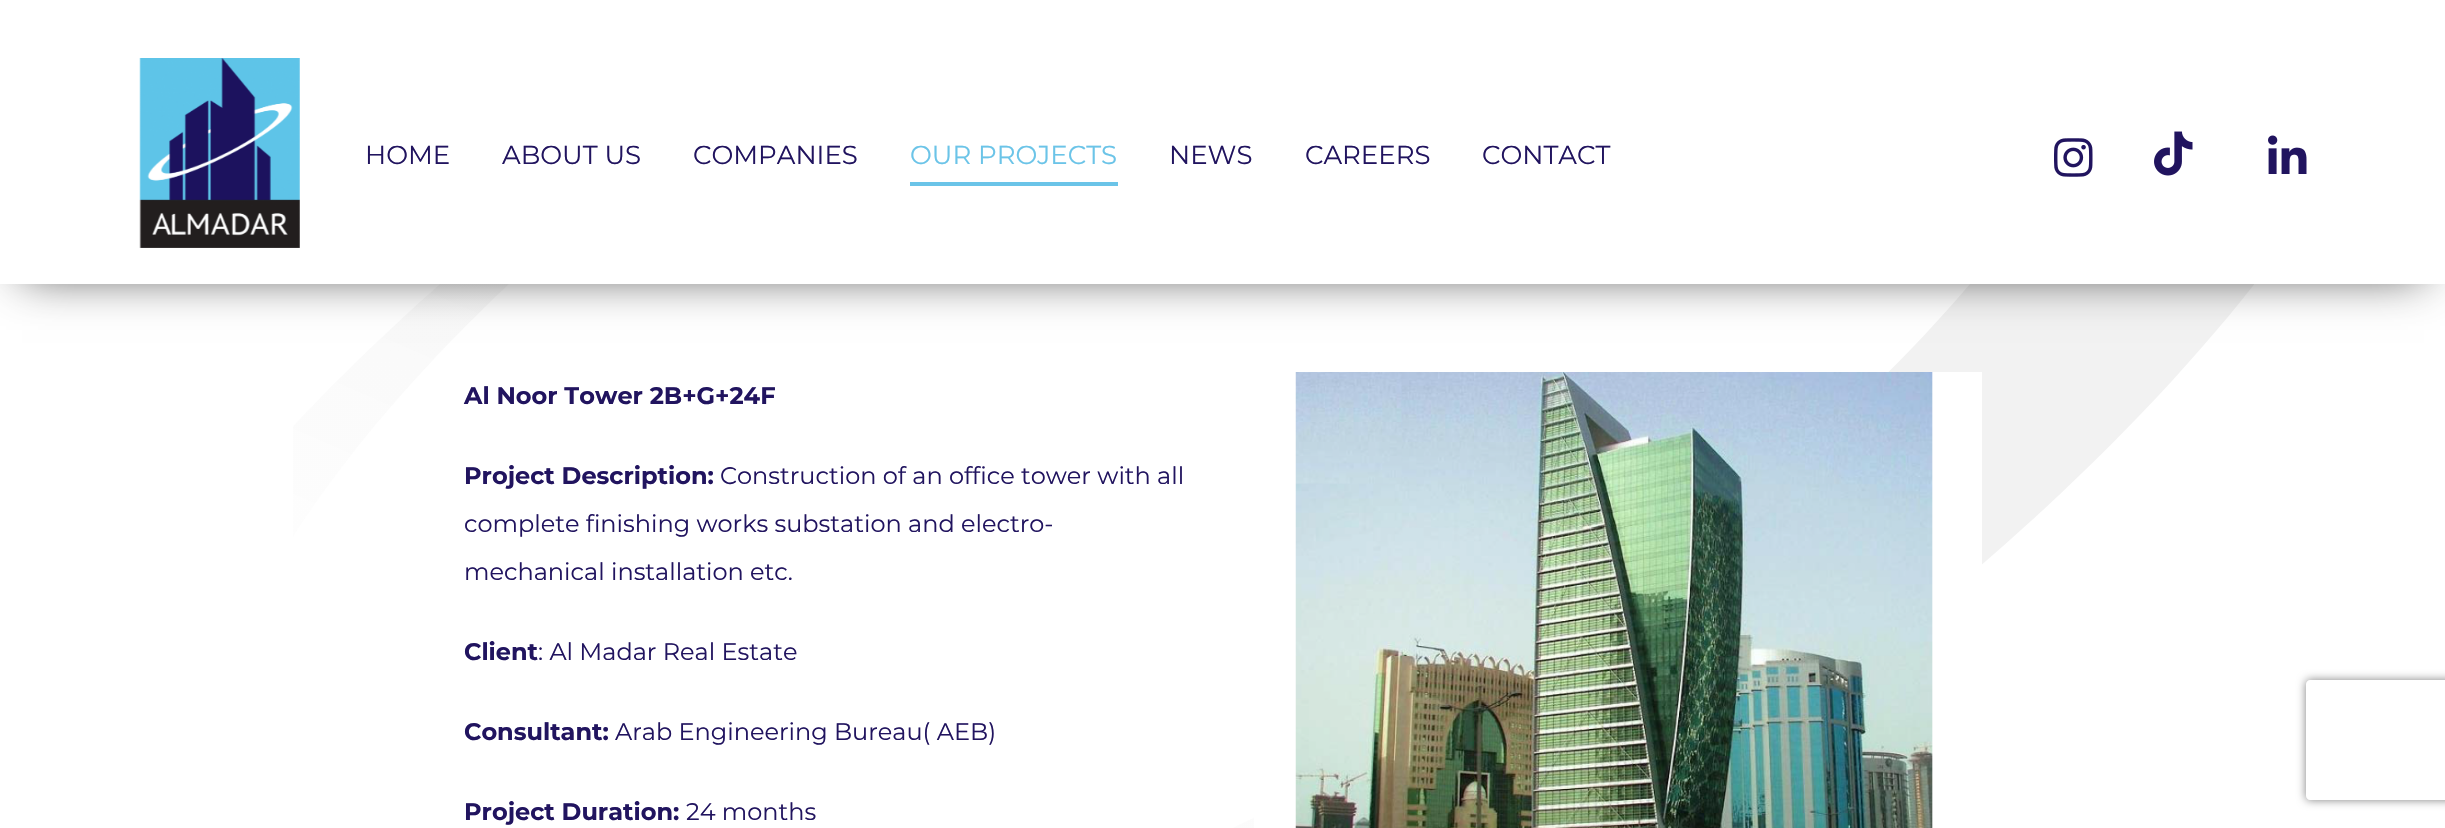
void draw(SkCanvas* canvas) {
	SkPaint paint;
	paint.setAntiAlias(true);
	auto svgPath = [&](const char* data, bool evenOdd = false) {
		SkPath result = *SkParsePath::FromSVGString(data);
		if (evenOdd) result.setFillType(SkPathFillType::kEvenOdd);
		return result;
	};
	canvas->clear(0xffffffff);
	canvas->drawImageRect(SkImages::DeferredFromEncodedData(SkData::MakeFromFileName("img1.png")), SkRect::MakeXYWH(293, 284, 1961, 544), SkSamplingOptions());
	paint.setColor(0xbf000000);
	paint.setMaskFilter(SkMaskFilter::MakeBlur(kNormal_SkBlurStyle, 23));
	canvas->drawRect(SkRect::MakeXYWH(22, 34, 2402, 240), paint);
	paint.setMaskFilter(nullptr);
	paint.setColor(0xffffffff);
	canvas->drawRect(SkRect::MakeXYWH(0, 0, 2445, 284), paint);
	canvas->drawImageRect(SkImages::DeferredFromEncodedData(SkData::MakeFromFileName("img2.png")), SkRect::MakeXYWH(139, 58, 161, 190), SkSamplingOptions());
	SkFont f1(fontMgr->matchFamilyStyle("Montserrat", SkFontStyle::Normal()), 26);
	f1.setSubpixel(true);
	paint.setColor(0xff21145f);
	canvas->drawString("HOME", 365, 164, f1, paint);
	canvas->drawString("ABOUT US", 502, 164, f1, paint);
	canvas->drawString("COMPANIES", 693, 164, f1, paint);
	paint.setColor(0xff6bc4e8);
	canvas->drawRect(SkRect::MakeXYWH(910, 182, 208, 4), paint);
	canvas->drawString("OUR PROJECTS", 910, 164, f1, paint);
	paint.setColor(0xff21145f);
	canvas->drawString("NEWS", 1169, 164, f1, paint);
	canvas->drawString("CAREERS", 1305, 164, f1, paint);
	canvas->drawString("CONTACT", 1482, 164, f1, paint);
	canvas->drawImageRect(SkImages::DeferredFromEncodedData(SkData::MakeFromFileName("img3.png")), SkRect::MakeXYWH(2054, 138, 39, 39), SkSamplingOptions());
	canvas->drawImageRect(SkImages::DeferredFromEncodedData(SkData::MakeFromFileName("img4.png")), SkRect::MakeXYWH(2154, 131, 39, 45), SkSamplingOptions());
	canvas->drawImageRect(SkImages::DeferredFromEncodedData(SkData::MakeFromFileName("img5.png")), SkRect::MakeXYWH(2268, 135, 39, 39), SkSamplingOptions());
	SkFont f2(fontMgr->matchFamilyStyle("Montserrat", SkFontStyle::Bold()), 24);
	f2.setSubpixel(true);
	canvas->drawString("Al Noor Tower 2B+G+24F", 464, 404, f2, paint);
	canvas->drawString("Project Description:", 464, 484, f2, paint);
	SkFont f3(fontMgr->matchFamilyStyle("Montserrat", SkFontStyle::Normal()), 24);
	f3.setSubpixel(true);
	canvas->drawString("Construction of an office tower with all", 720, 484, f3, paint);
	canvas->drawString("complete finishing works substation and electro-", 464, 532, f3, paint);
	canvas->drawString("mechanical installation etc.", 464, 580, f3, paint);
	canvas->drawString("Client", 464, 660, f2, paint);
	canvas->drawString(": Al Madar Real Estate", 538, 660, f3, paint);
	canvas->drawString("Consultant:", 464, 740, f2, paint);
	canvas->drawString("Arab Engineering Bureau( AEB)", 615, 740, f3, paint);
	canvas->drawString("Project Duration:", 464, 820, f2, paint);
	canvas->drawString("24 months", 686, 820, f3, paint);
	canvas->drawImageRect(SkImages::DeferredFromEncodedData(SkData::MakeFromFileName("img6.png")), SkRect::MakeXYWH(1254, 372, 728, 456), SkSamplingOptions());
	canvas->save();
	canvas->clipPath(svgPath("M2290 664H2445V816H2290ZM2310 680H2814C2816 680 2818 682 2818 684V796C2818 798 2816 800 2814 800H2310C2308 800 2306 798 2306 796V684C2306 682 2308 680 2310 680Z", true), true);
	paint.setColor(0xff808080);
	paint.setMaskFilter(SkMaskFilter::MakeBlur(kNormal_SkBlurStyle, 5));
	canvas->drawRoundRect(SkRect::MakeXYWH(2306, 680, 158, 120), 4, 4, paint);
	paint.setMaskFilter(nullptr);
	canvas->restore();
}
